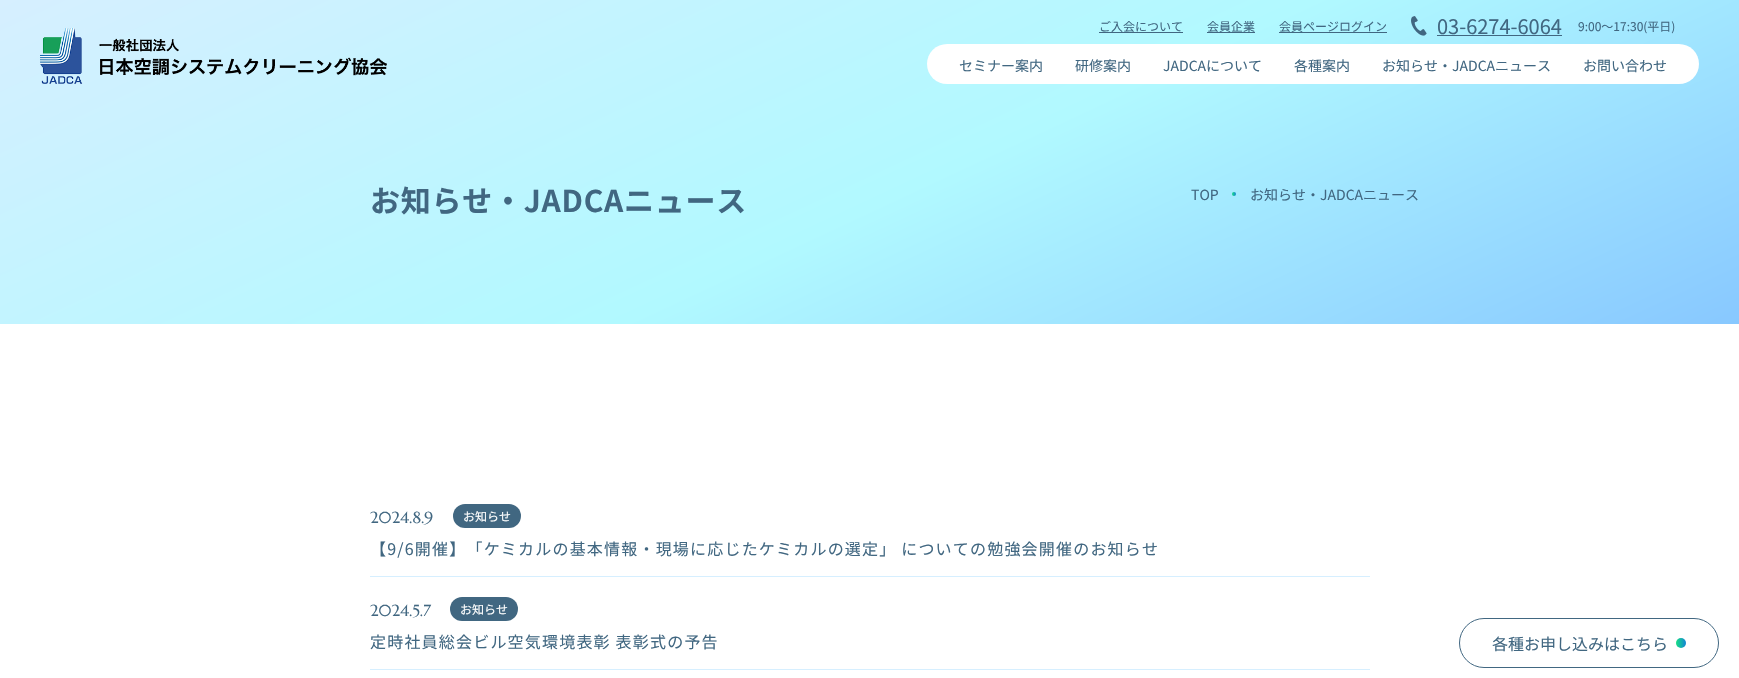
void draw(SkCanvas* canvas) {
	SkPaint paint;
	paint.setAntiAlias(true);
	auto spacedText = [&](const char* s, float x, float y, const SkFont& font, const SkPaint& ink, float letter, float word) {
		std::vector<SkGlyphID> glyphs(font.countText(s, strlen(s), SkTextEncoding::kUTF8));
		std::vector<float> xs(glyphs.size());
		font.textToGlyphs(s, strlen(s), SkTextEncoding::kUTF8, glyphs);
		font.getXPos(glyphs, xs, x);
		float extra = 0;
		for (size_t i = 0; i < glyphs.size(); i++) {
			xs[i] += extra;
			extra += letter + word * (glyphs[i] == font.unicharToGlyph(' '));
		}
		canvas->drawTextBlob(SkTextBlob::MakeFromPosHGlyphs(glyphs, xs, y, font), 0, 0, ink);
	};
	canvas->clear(0xffffffff);
	{
		const SkColor colors[] = {0xff88c8ff, 0xffb1f9ff, 0xffd6efff};
		const float stops[] = {0, 0.46, 1};
		const SkPoint ends[] = {{1087, 628}, {652, -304}};
		paint.setShader(SkGradientShader::MakeLinear(ends, colors, stops, 3, SkTileMode::kClamp));
		paint.setAlpha(255);
	}
	canvas->drawRect(SkRect::MakeXYWH(0, 0, 1739, 324), paint);
	canvas->drawImageRect(SkImages::DeferredFromEncodedData(SkData::MakeFromFileName("img1.png")), SkRect::MakeXYWH(40, 28, 347, 56), SkSamplingOptions());
	SkFont f1(fontMgr->matchFamilyStyle("Noto Sans JP", SkFontStyle::Normal()), 12);
	f1.setSubpixel(true);
	paint.setShader(nullptr);
	paint.setColor(0xff416781);
	canvas->drawString("ご入会について", 1099, 31, f1, paint);
	canvas->drawRect(SkRect::MakeXYWH(1099, 32, 84, 1), paint);
	canvas->drawString("会員企業", 1207, 31, f1, paint);
	canvas->drawRect(SkRect::MakeXYWH(1207, 32, 48, 1), paint);
	canvas->drawString("会員ページログイン", 1279, 31, f1, paint);
	canvas->drawRect(SkRect::MakeXYWH(1279, 32, 108, 1), paint);
	canvas->drawImageRect(SkImages::DeferredFromEncodedData(SkData::MakeFromFileName("img2.png")), SkRect::MakeXYWH(1411, 16, 16, 20), SkSamplingOptions());
	SkFont f2(fontMgr->matchFamilyStyle("Noto Sans JP", SkFontStyle::Normal()), 20);
	f2.setSubpixel(true);
	canvas->drawString("03-6274-6064", 1437, 34, f2, paint);
	canvas->drawRect(SkRect::MakeXYWH(1437, 35, 125, 1), paint);
	canvas->drawString("9:00～17:30(平日)", 1578, 31, f1, paint);
	paint.setColor(0xffffffff);
	canvas->drawRoundRect(SkRect::MakeXYWH(927, 44, 772, 40), 20, 20, paint);
	SkFont f3(fontMgr->matchFamilyStyle("Noto Sans JP", SkFontStyle::Normal()), 14);
	f3.setSubpixel(true);
	paint.setColor(0xff416781);
	canvas->drawString("セミナー案内", 959, 71, f3, paint);
	canvas->drawString("研修案内", 1075, 71, f3, paint);
	canvas->drawString("JADCAについて", 1163, 71, f3, paint);
	canvas->drawString("各種案内", 1294, 71, f3, paint);
	canvas->drawString("お知らせ・JADCAニュース", 1382, 71, f3, paint);
	canvas->drawString("お問い合わせ", 1583, 71, f3, paint);
	SkFont f4(fontMgr->matchFamilyStyle("Noto Sans JP", SkFontStyle::Bold()), 30);
	f4.setSubpixel(true);
	spacedText("お知らせ・JADCAニュース", 370, 212, f4, paint, 0.75, 0);
	canvas->drawString("TOP", 1191, 200, f3, paint);
	{
		const SkColor colors[] = {0xff17e083, 0xff1383d5};
		const float stops[] = {0, 1};
		const SkPoint ends[] = {{1232, 194}, {1236, 194}};
		paint.setShader(SkGradientShader::MakeLinear(ends, colors, stops, 2, SkTileMode::kClamp));
		paint.setAlpha(255);
	}
	canvas->drawCircle(1234, 194, 2, paint);
	paint.setShader(nullptr);
	paint.setColor(0xff416781);
	canvas->drawString("お知らせ・JADCAニュース", 1250, 200, f3, paint);
	paint.setColor(0xffd6efff);
	canvas->drawRect(SkRect::MakeXYWH(370, 576, 1000, 1), paint);
	SkFont f5(fontMgr->matchFamilyStyle("Marcellus", SkFontStyle::Normal()), 16);
	f5.setSubpixel(true);
	paint.setColor(0xff416781);
	canvas->drawString("2024.8.9", 370, 523, f5, paint);
	canvas->drawRoundRect(SkRect::MakeXYWH(453, 504, 68, 24), 12, 12, paint);
	paint.setColor(0xffffffff);
	canvas->drawString("お知らせ", 463, 521, f1, paint);
	SkFont f6(fontMgr->matchFamilyStyle("Noto Sans JP", SkFontStyle::Normal()), 16);
	f6.setSubpixel(true);
	paint.setColor(0xff416781);
	spacedText("【9/6開催】「ケミカルの基本情報・現場に応じたケミカルの選定」 についての勉強会開催のお知らせ", 370, 555, f6, paint, 1.2, 0);
	paint.setColor(0xffd6efff);
	canvas->drawRect(SkRect::MakeXYWH(370, 669, 1000, 1), paint);
	paint.setColor(0xff416781);
	canvas->drawString("2024.5.7", 370, 616, f5, paint);
	canvas->drawRoundRect(SkRect::MakeXYWH(450, 597, 68, 24), 12, 12, paint);
	paint.setColor(0xffffffff);
	canvas->drawString("お知らせ", 460, 614, f1, paint);
	paint.setColor(0xff416781);
	spacedText("定時社員総会ビル空気環境表彰 表彰式の予告", 370, 648, f6, paint, 1.2, 0);
	paint.setStroke(true);
	paint.setStrokeWidth(1);
	canvas->drawRoundRect(SkRect::MakeXYWH(1459.5, 618.5, 259, 49), 24.5, 24.5, paint);
	paint.setStroke(false);
	canvas->drawString("各種お申し込みはこちら", 1492, 650, f6, paint);
	{
		const SkColor colors[] = {0xff17e083, 0xff1383d5};
		const float stops[] = {0, 1};
		const SkPoint ends[] = {{1676, 643}, {1686, 643}};
		paint.setShader(SkGradientShader::MakeLinear(ends, colors, stops, 2, SkTileMode::kClamp));
		paint.setAlpha(255);
	}
	canvas->drawCircle(1681, 643, 5, paint);
}
